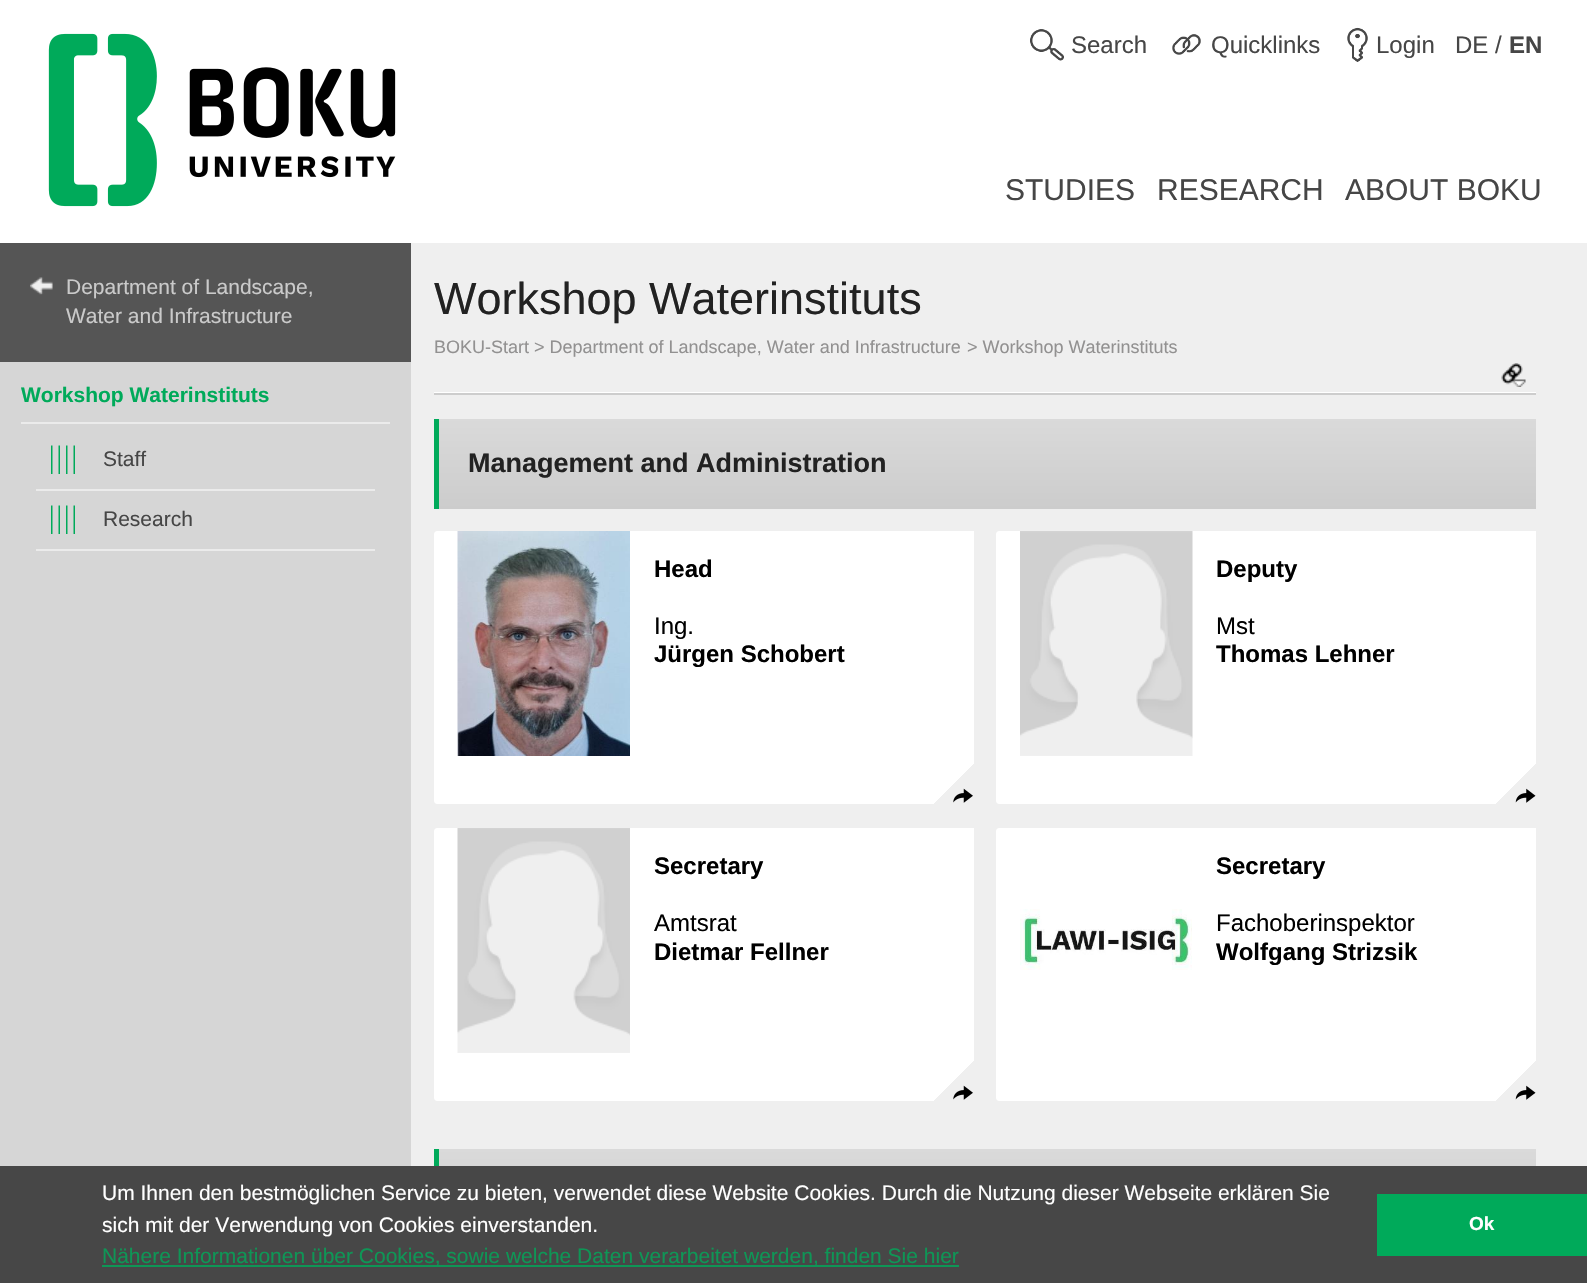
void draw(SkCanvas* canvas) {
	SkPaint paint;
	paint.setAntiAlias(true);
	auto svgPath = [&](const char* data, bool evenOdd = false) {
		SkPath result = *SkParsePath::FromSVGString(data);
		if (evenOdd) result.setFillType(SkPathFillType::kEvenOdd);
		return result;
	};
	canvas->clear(0xffefefef);
	paint.setColor(0xffffffff);
	canvas->drawRect(SkRect::MakeXYWH(0, 0, 1587, 243), paint);
	canvas->drawImageRect(SkImages::DeferredFromEncodedData(SkData::MakeFromFileName("img1.png")), SkRect::MakeXYWH(1030, 29, 34, 32), SkSamplingOptions());
	SkFont f1(fontMgr->matchFamilyStyle("Liberation Sans", SkFontStyle::Normal()), 24);
	f1.setSubpixel(true);
	paint.setColor(0xff464646);
	canvas->drawString("Search", 1071, 53, f1, paint);
	canvas->drawImageRect(SkImages::DeferredFromEncodedData(SkData::MakeFromFileName("img2.png")), SkRect::MakeXYWH(1172, 34, 29, 21), SkSamplingOptions());
	canvas->drawString("Quicklinks", 1211, 53, f1, paint);
	canvas->drawImageRect(SkImages::DeferredFromEncodedData(SkData::MakeFromFileName("img3.png")), SkRect::MakeXYWH(1347, 27, 21, 35), SkSamplingOptions());
	canvas->drawString("Login", 1376, 53, f1, paint);
	canvas->drawString("DE /", 1455, 53, f1, paint);
	SkFont f2(fontMgr->matchFamilyStyle("Liberation Sans", SkFontStyle::Bold()), 24);
	f2.setSubpixel(true);
	canvas->drawString("EN", 1509, 53, f2, paint);
	canvas->drawImageRect(SkImages::DeferredFromEncodedData(SkData::MakeFromFileName("img4.png")), SkRect::MakeXYWH(48, 33, 348, 174), SkSamplingOptions());
	SkFont f3(fontMgr->matchFamilyStyle("Liberation Sans", SkFontStyle::Normal()), 30);
	f3.setSubpixel(true);
	canvas->drawString("STUDIES", 1005, 200, f3, paint);
	canvas->drawString("RESEARCH", 1157, 200, f3, paint);
	canvas->drawString("ABOUT BOKU", 1345, 200, f3, paint);
	paint.setColor(0xffd6d6d6);
	canvas->drawRect(SkRect::MakeXYWH(0, 362, 411, 804), paint);
	paint.setColor(0xff555555);
	canvas->drawRect(SkRect::MakeXYWH(0, 243, 411, 119), paint);
	canvas->drawImageRect(SkImages::DeferredFromEncodedData(SkData::MakeFromFileName("img5.png")), SkRect::MakeXYWH(30, 277, 23, 18), SkSamplingOptions());
	SkFont f4(fontMgr->matchFamilyStyle("Liberation Sans", SkFontStyle::Normal()), 21);
	f4.setSubpixel(true);
	paint.setColor(0xffcacaca);
	canvas->drawString("Department of Landscape,", 66, 294, f4, paint);
	canvas->drawString("Water and Infrastructure", 66, 323, f4, paint);
	SkFont f5(fontMgr->matchFamilyStyle("Liberation Sans", SkFontStyle::Bold()), 21);
	f5.setSubpixel(true);
	paint.setColor(0xff00aa5a);
	canvas->drawString("Workshop Waterinstituts", 21, 402, f5, paint);
	paint.setColor(0xffebebeb);
	canvas->drawRect(SkRect::MakeXYWH(21, 422, 369, 2), paint);
	canvas->drawRect(SkRect::MakeXYWH(36, 489, 339, 2), paint);
	canvas->drawImageRect(SkImages::DeferredFromEncodedData(SkData::MakeFromFileName("img6.png")), SkRect::MakeXYWH(51, 445, 24, 29), SkSamplingOptions());
	paint.setColor(0xff464646);
	canvas->drawString("Staff", 103, 466, f4, paint);
	paint.setColor(0xffebebeb);
	canvas->drawRect(SkRect::MakeXYWH(36, 549, 339, 2), paint);
	canvas->drawImageRect(SkImages::DeferredFromEncodedData(SkData::MakeFromFileName("img6.png")), SkRect::MakeXYWH(51, 505, 24, 29), SkSamplingOptions());
	paint.setColor(0xff464646);
	canvas->drawString("Research", 103, 526, f4, paint);
	SkFont f6(fontMgr->matchFamilyStyle("Liberation Sans", SkFontStyle::Normal()), 45);
	f6.setSubpixel(true);
	paint.setColor(0xff222222);
	canvas->drawString("Workshop Waterinstituts", 434, 314, f6, paint);
	SkFont f7(fontMgr->matchFamilyStyle("Liberation Sans", SkFontStyle::Normal()), 18);
	f7.setSubpixel(true);
	paint.setColor(0xff929191);
	canvas->drawString("BOKU-Start", 434, 353, f7, paint);
	canvas->drawString("> Department of Landscape, Water and Infrastructure", 534, 353, f7, paint);
	canvas->drawString("> Workshop Waterinstituts", 967, 353, f7, paint);
	canvas->drawImageRect(SkImages::DeferredFromEncodedData(SkData::MakeFromFileName("img7.png")), SkRect::MakeXYWH(1501, 363, 25, 24), SkSamplingOptions());
	paint.setColor(0xffffffff);
	canvas->drawRect(SkRect::MakeXYWH(434, 392, 1102, 1), paint);
	paint.setColor(0xffcdcdcd);
	canvas->drawRect(SkRect::MakeXYWH(434, 393, 1102, 2), paint);
	{
		const SkColor colors[] = {0xffdadada, 0xffcccccc};
		const float stops[] = {0, 1};
		const SkPoint ends[] = {{987, 418}, {987, 509}};
		paint.setShader(SkGradientShader::MakeLinear(ends, colors, stops, 2, SkTileMode::kClamp));
		paint.setAlpha(255);
	}
	canvas->drawRect(SkRect::MakeXYWH(439, 419, 1097, 90), paint);
	paint.setShader(nullptr);
	paint.setColor(0xff00aa5a);
	canvas->drawRect(SkRect::MakeXYWH(434, 419, 5, 90), paint);
	SkFont f8(fontMgr->matchFamilyStyle("Liberation Sans", SkFontStyle::Bold()), 27);
	f8.setSubpixel(true);
	paint.setColor(0xff222222);
	canvas->drawString("Management and Administration", 468, 472, f8, paint);
	canvas->drawImageRect(SkImages::DeferredFromEncodedData(SkData::MakeFromFileName("img8.png")), SkRect::MakeXYWH(953, 788, 20, 15), SkSamplingOptions());
	{
		const SkColor colors[] = {0x00ffffff, 0x00ffffff, 0xffffffff, 0xffffffff};
		const float stops[] = {0, 0.05, 0.05, 1};
		const SkPoint ends[] = {{907, 871}, {500, 464}};
		paint.setShader(SkGradientShader::MakeLinear(ends, colors, stops, 4, SkTileMode::kClamp));
		paint.setAlpha(255);
	}
	canvas->drawPath(svgPath("M437 531H974V804H437C435.5 804 434 802.5 434 801V534C434 532.5 435.5 531 437 531Z"), paint);
	canvas->drawImageRect(SkImages::DeferredFromEncodedData(SkData::MakeFromFileName("img9.png")), SkRect::MakeXYWH(457, 531, 173, 225), SkSamplingOptions());
	paint.setShader(nullptr);
	paint.setColor(0xff000000);
	canvas->drawString("Head", 654, 577, f2, paint);
	canvas->drawString("Ing.", 654, 634, f1, paint);
	canvas->drawString("Jürgen Schobert", 654, 662, f2, paint);
	canvas->drawImageRect(SkImages::DeferredFromEncodedData(SkData::MakeFromFileName("img10.png")), SkRect::MakeXYWH(1515, 788, 21, 15), SkSamplingOptions());
	{
		const SkColor colors[] = {0x00ffffff, 0x00ffffff, 0xffffffff, 0xffffffff};
		const float stops[] = {0, 0.05, 0.05, 1};
		const SkPoint ends[] = {{1469, 871}, {1063, 464}};
		paint.setShader(SkGradientShader::MakeLinear(ends, colors, stops, 4, SkTileMode::kClamp));
		paint.setAlpha(255);
	}
	canvas->drawPath(svgPath("M999 531H1536V804H999C997.5 804 996 802.5 996 801V534C996 532.5 997.5 531 999 531Z"), paint);
	canvas->drawImageRect(SkImages::DeferredFromEncodedData(SkData::MakeFromFileName("img11.png")), SkRect::MakeXYWH(1020, 531, 173, 225), SkSamplingOptions());
	paint.setShader(nullptr);
	paint.setColor(0xff000000);
	canvas->drawString("Deputy", 1216, 577, f2, paint);
	canvas->drawString("Mst", 1216, 634, f1, paint);
	canvas->drawString("Thomas Lehner", 1216, 662, f2, paint);
	canvas->drawImageRect(SkImages::DeferredFromEncodedData(SkData::MakeFromFileName("img8.png")), SkRect::MakeXYWH(953, 1085, 20, 15), SkSamplingOptions());
	{
		const SkColor colors[] = {0x00ffffff, 0x00ffffff, 0xffffffff, 0xffffffff};
		const float stops[] = {0, 0.05, 0.05, 1};
		const SkPoint ends[] = {{907, 1168}, {500, 761}};
		paint.setShader(SkGradientShader::MakeLinear(ends, colors, stops, 4, SkTileMode::kClamp));
		paint.setAlpha(255);
	}
	canvas->drawPath(svgPath("M437 828H974V1101H437C435.5 1101 434 1099.5 434 1098V831C434 829.5 435.5 828 437 828Z"), paint);
	canvas->drawImageRect(SkImages::DeferredFromEncodedData(SkData::MakeFromFileName("img12.png")), SkRect::MakeXYWH(457, 828, 173, 225), SkSamplingOptions());
	paint.setShader(nullptr);
	paint.setColor(0xff000000);
	canvas->drawString("Secretary", 654, 874, f2, paint);
	canvas->drawString("Amtsrat", 654, 931, f1, paint);
	canvas->drawString("Dietmar Fellner", 654, 960, f2, paint);
	canvas->drawImageRect(SkImages::DeferredFromEncodedData(SkData::MakeFromFileName("img10.png")), SkRect::MakeXYWH(1515, 1085, 21, 15), SkSamplingOptions());
	{
		const SkColor colors[] = {0x00ffffff, 0x00ffffff, 0xffffffff, 0xffffffff};
		const float stops[] = {0, 0.05, 0.05, 1};
		const SkPoint ends[] = {{1469, 1168}, {1063, 761}};
		paint.setShader(SkGradientShader::MakeLinear(ends, colors, stops, 4, SkTileMode::kClamp));
		paint.setAlpha(255);
	}
	canvas->drawPath(svgPath("M999 828H1536V1101H999C997.5 1101 996 1099.5 996 1098V831C996 829.5 997.5 828 999 828Z"), paint);
	canvas->drawImageRect(SkImages::DeferredFromEncodedData(SkData::MakeFromFileName("img13.png")), SkRect::MakeXYWH(1020, 909, 172, 61), SkSamplingOptions());
	paint.setShader(nullptr);
	paint.setColor(0xff000000);
	canvas->drawString("Secretary", 1216, 874, f2, paint);
	canvas->drawString("Fachoberinspektor", 1216, 931, f1, paint);
	canvas->drawString("Wolfgang Strizsik", 1216, 960, f2, paint);
	{
		const SkColor colors[] = {0xffdadada, 0xffcccccc};
		const float stops[] = {0, 1};
		const SkPoint ends[] = {{987, 1149}, {987, 1238}};
		paint.setShader(SkGradientShader::MakeLinear(ends, colors, stops, 2, SkTileMode::kClamp));
		paint.setAlpha(255);
	}
	canvas->drawRect(SkRect::MakeXYWH(439, 1149, 1097, 17), paint);
	paint.setShader(nullptr);
	paint.setColor(0xff00aa5a);
	canvas->drawRect(SkRect::MakeXYWH(434, 1149, 5, 17), paint);
	paint.setColor(0xff474747);
	canvas->drawRect(SkRect::MakeXYWH(0, 1166, 1587, 117), paint);
	paint.setColor(0xffffffff);
	canvas->drawString("Um Ihnen den bestmöglichen Service zu bieten, verwendet diese Website Cookies. Durch die Nutzung dieser Webseite erklären Sie", 102, 1200, f4, paint);
	canvas->drawString("sich mit der Verwendung von Cookies einverstanden.", 102, 1232, f4, paint);
	paint.setColor(0xff0e9656);
	canvas->drawRect(SkRect::MakeXYWH(102, 1265, 857, 2), paint);
	canvas->drawString("Nähere Informationen über Cookies, sowie welche Daten verarbeitet werden, finden Sie hier", 102, 1263, f4, paint);
	paint.setColor(0xff00aa5a);
	canvas->drawRect(SkRect::MakeXYWH(1377, 1194, 210, 62), paint);
	SkFont f9(fontMgr->matchFamilyStyle("Liberation Sans", SkFontStyle::Bold()), 19);
	f9.setSubpixel(true);
	paint.setColor(0xffffffff);
	canvas->drawString("Ok", 1469, 1230, f9, paint);
}
